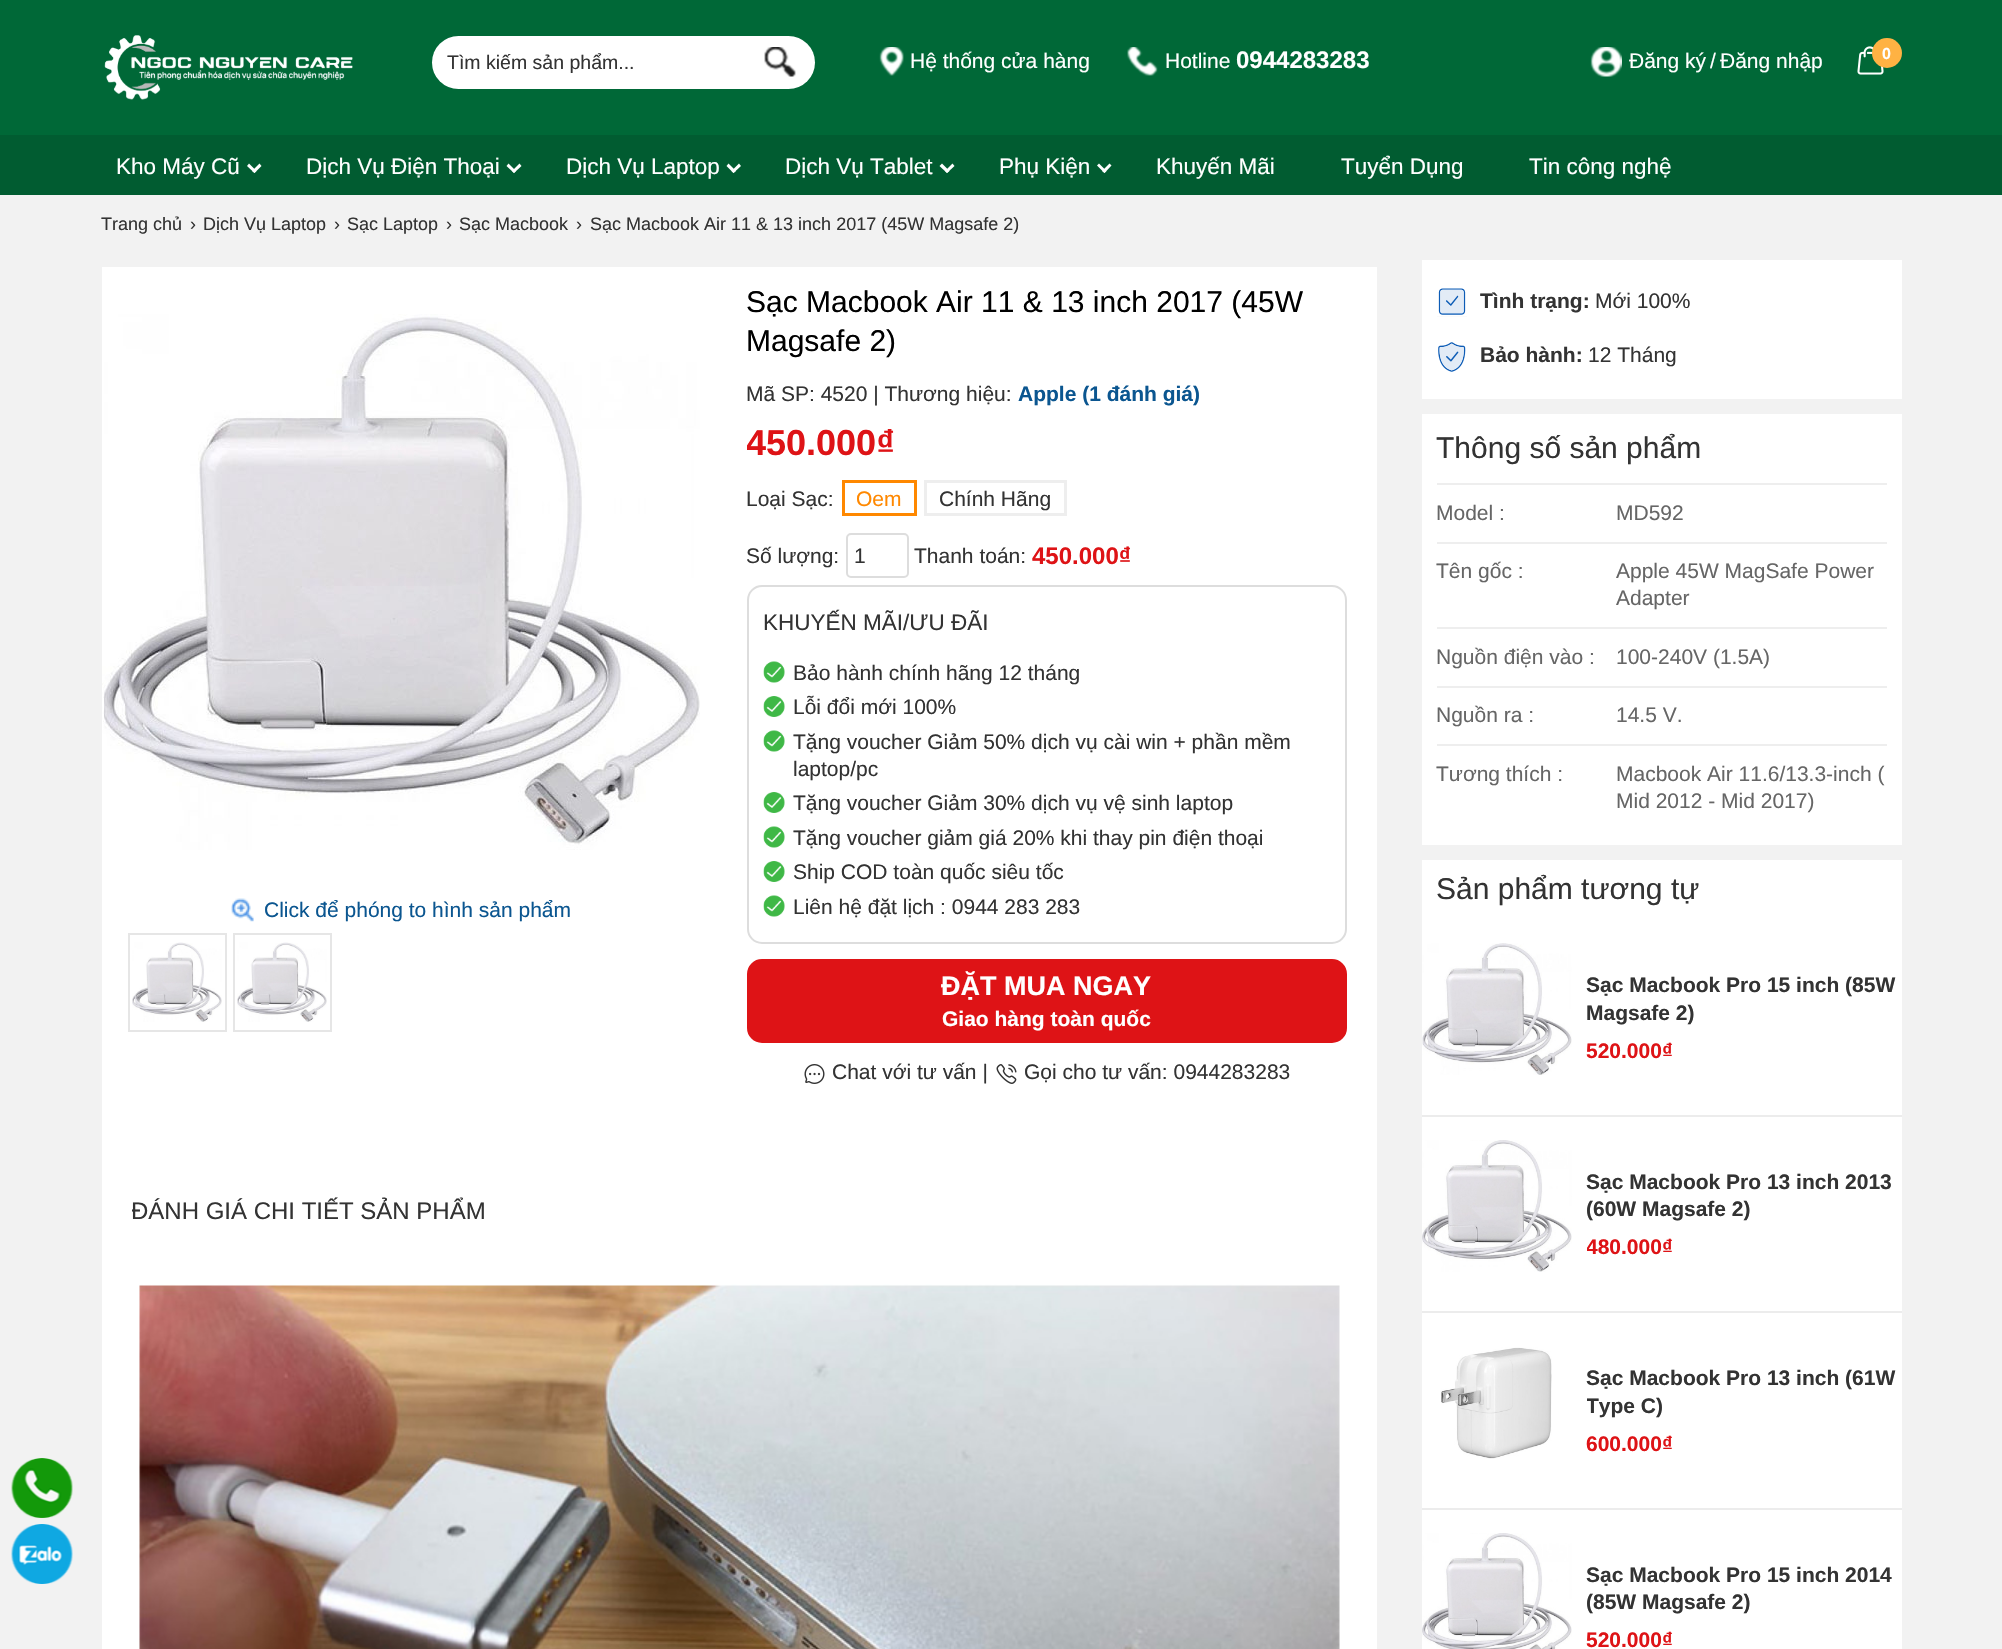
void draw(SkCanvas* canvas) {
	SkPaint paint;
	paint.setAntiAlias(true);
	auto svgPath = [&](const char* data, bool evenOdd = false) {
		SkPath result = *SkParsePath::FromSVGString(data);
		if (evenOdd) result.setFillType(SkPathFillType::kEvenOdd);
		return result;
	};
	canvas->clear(0xfff2f2f2);
	paint.setColor(0xff006837);
	canvas->drawRect(SkRect::MakeXYWH(0, 0, 2002, 135), paint);
	canvas->drawImageRect(SkImages::DeferredFromEncodedData(SkData::MakeFromFileName("img1.png")), SkRect::MakeXYWH(104, 35, 249, 65), SkSamplingOptions());
	paint.setColor(0xffffffff);
	canvas->drawRoundRect(SkRect::MakeXYWH(432, 36, 383, 53), 26.5, 26.5, paint);
	SkFont f1(fontMgr->matchFamilyStyle("Liberation Sans", SkFontStyle::Normal()), 19.5);
	f1.setSubpixel(true);
	paint.setColor(0xff333333);
	canvas->drawString("Tìm kiếm sản phẩm...", 447, 69, f1, paint);
	canvas->drawImageRect(SkImages::DeferredFromEncodedData(SkData::MakeFromFileName("img2.png")), SkRect::MakeXYWH(764, 47, 32, 30), SkSamplingOptions());
	canvas->drawImageRect(SkImages::DeferredFromEncodedData(SkData::MakeFromFileName("img3.png")), SkRect::MakeXYWH(879, 47, 25, 29), SkSamplingOptions());
	SkFont f2(fontMgr->matchFamilyStyle("Liberation Sans", SkFontStyle::Normal()), 21);
	f2.setSubpixel(true);
	paint.setColor(0xffffffff);
	canvas->drawString("Hệ thống cửa hàng", 910, 68, f2, paint);
	canvas->drawImageRect(SkImages::DeferredFromEncodedData(SkData::MakeFromFileName("img4.png")), SkRect::MakeXYWH(1127, 47, 31, 29), SkSamplingOptions());
	canvas->drawString("Hotline", 1165, 68, f2, paint);
	SkFont f3(fontMgr->matchFamilyStyle("Liberation Sans", SkFontStyle::Bold()), 24);
	f3.setSubpixel(true);
	canvas->drawString("0944283283", 1236, 68, f3, paint);
	canvas->drawImageRect(SkImages::DeferredFromEncodedData(SkData::MakeFromFileName("img5.png")), SkRect::MakeXYWH(1590, 47, 32, 30), SkSamplingOptions());
	canvas->drawString("Đăng ký", 1629, 68, f2, paint);
	canvas->drawString("/", 1710, 68, f2, paint);
	canvas->drawString("Đăng nhập", 1720, 68, f2, paint);
	canvas->drawImageRect(SkImages::DeferredFromEncodedData(SkData::MakeFromFileName("img6.png")), SkRect::MakeXYWH(1857, 46, 27, 29), SkSamplingOptions());
	paint.setColor(0xffffb243);
	canvas->drawCircle(1887, 53, 15, paint);
	SkFont f4(fontMgr->matchFamilyStyle("Liberation Sans", SkFontStyle::Bold()), 16);
	f4.setSubpixel(true);
	paint.setColor(0xffffffff);
	canvas->drawString("0", 1882, 59, f4, paint);
	paint.setColor(0xff015c31);
	canvas->drawRect(SkRect::MakeXYWH(0, 135, 2002, 60), paint);
	SkFont f5(fontMgr->matchFamilyStyle("Liberation Sans", SkFontStyle::Normal()), 22.5);
	f5.setSubpixel(true);
	paint.setColor(0xffffffff);
	canvas->drawString("Kho Máy Cũ", 116, 174, f5, paint);
	canvas->drawPath(svgPath("M259.5 163.5L261.5 166L254.5 173L252 171Z"), paint);
	canvas->drawPath(svgPath("M249 163.5L256.5 171L254.5 173L247 166Z"), paint);
	canvas->drawString("Dịch Vụ Điện Thoại", 306, 174, f5, paint);
	canvas->drawPath(svgPath("M519.5 163.5L521.5 166L514 173L512 171Z"), paint);
	canvas->drawPath(svgPath("M508.5 163.5L516 171L514 173L506.5 166Z"), paint);
	canvas->drawString("Dịch Vụ Laptop", 566, 174, f5, paint);
	canvas->drawPath(svgPath("M739 163.5L741 166L733.5 173L731.5 171Z"), paint);
	canvas->drawPath(svgPath("M728.5 163.5L736 171L733.5 173L726.5 166Z"), paint);
	canvas->drawString("Dịch Vụ Tablet", 785, 174, f5, paint);
	canvas->drawPath(svgPath("M952.5 163.5L954.5 166L947 173L945 171Z"), paint);
	canvas->drawPath(svgPath("M942 163.5L949.5 171L947 173L939.5 166Z"), paint);
	canvas->drawString("Phụ Kiện", 999, 174, f5, paint);
	canvas->drawPath(svgPath("M1109.5 163.5L1111.5 165.5L1104.5 173L1102 171Z"), paint);
	canvas->drawPath(svgPath("M1099 163.5L1106.5 171L1104.5 173L1097 165.5Z"), paint);
	canvas->drawString("Khuyến Mãi", 1156, 174, f5, paint);
	canvas->drawString("Tuyển Dụng", 1341, 174, f5, paint);
	canvas->drawString("Tin công nghệ", 1529, 174, f5, paint);
	canvas->drawImageRect(SkImages::DeferredFromEncodedData(SkData::MakeFromFileName("img7.png")), SkRect::MakeXYWH(11, 1458, 62, 60), SkSamplingOptions());
	canvas->drawImageRect(SkImages::DeferredFromEncodedData(SkData::MakeFromFileName("img8.png")), SkRect::MakeXYWH(11, 1524, 62, 60), SkSamplingOptions());
	SkFont f6(fontMgr->matchFamilyStyle("Liberation Sans", SkFontStyle::Normal()), 18);
	f6.setSubpixel(true);
	paint.setColor(0xff333333);
	canvas->drawString("Trang chủ", 101, 230, f6, paint);
	canvas->drawString("›", 190, 230, f6, paint);
	canvas->drawString("Dịch Vụ Laptop", 203, 230, f6, paint);
	canvas->drawString("›", 334, 230, f6, paint);
	canvas->drawString("Sạc Laptop", 347, 230, f6, paint);
	canvas->drawString("›", 446, 230, f6, paint);
	canvas->drawString("Sạc Macbook", 459, 230, f6, paint);
	canvas->drawString("›", 576, 230, f6, paint);
	canvas->drawString("Sạc Macbook Air 11 & 13 inch 2017 (45W Magsafe 2)", 590, 230, f6, paint);
	paint.setColor(0xffffffff);
	canvas->drawRect(SkRect::MakeXYWH(102, 267, 1275, 1382), paint);
	canvas->drawImageRect(SkImages::DeferredFromEncodedData(SkData::MakeFromFileName("img9.png")), SkRect::MakeXYWH(102, 314, 598, 536), SkSamplingOptions());
	canvas->drawImageRect(SkImages::DeferredFromEncodedData(SkData::MakeFromFileName("img10.png")), SkRect::MakeXYWH(231, 898, 23, 24), SkSamplingOptions());
	paint.setColor(0xff0b5690);
	canvas->drawString("Click để phóng to hình sản phẩm", 264, 917, f2, paint);
	paint.setStroke(true);
	paint.setStrokeWidth(2);
	paint.setColor(0xffe6e6e6);
	canvas->drawRect(SkRect::MakeXYWH(129, 934, 97, 97), paint);
	canvas->drawImageRect(SkImages::DeferredFromEncodedData(SkData::MakeFromFileName("img11.png")), SkRect::MakeXYWH(132, 942, 90, 80), SkSamplingOptions());
	canvas->drawRect(SkRect::MakeXYWH(234, 934, 97, 97), paint);
	canvas->drawImageRect(SkImages::DeferredFromEncodedData(SkData::MakeFromFileName("img12.png")), SkRect::MakeXYWH(237, 942, 90, 80), SkSamplingOptions());
	SkFont f7(fontMgr->matchFamilyStyle("Liberation Sans", SkFontStyle::Normal()), 30);
	f7.setSubpixel(true);
	paint.setStroke(false);
	paint.setColor(0xff000000);
	canvas->drawString("Sạc Macbook Air 11 & 13 inch 2017 (45W", 746, 312, f7, paint);
	canvas->drawString("Magsafe 2)", 746, 351, f7, paint);
	paint.setColor(0xff333333);
	canvas->drawString("Mã SP: 4520 | Thương hiệu:", 746, 401, f2, paint);
	SkFont f8(fontMgr->matchFamilyStyle("Liberation Sans", SkFontStyle::Bold()), 21);
	f8.setSubpixel(true);
	paint.setColor(0xff0b5690);
	canvas->drawString("Apple (1 đánh giá)", 1018, 401, f8, paint);
	canvas->save();
	canvas->clipRect(SkRect::MakeXYWH(747, 428, 149, 30));
	SkFont f9(fontMgr->matchFamilyStyle("Liberation Sans", SkFontStyle::Bold()), 36);
	f9.setSubpixel(true);
	paint.setColor(0xffde1316);
	canvas->drawString("450.000₫", 746, 455, f9, paint);
	canvas->restore();
	paint.setColor(0xff333333);
	canvas->drawString("Loại Sạc:", 746, 506, f2, paint);
	paint.setStroke(true);
	paint.setStrokeWidth(3);
	paint.setColor(0xffff8800);
	canvas->drawRect(SkRect::MakeXYWH(843.5, 481.5, 72, 33), paint);
	paint.setStroke(false);
	canvas->drawString("Oem", 856, 506, f2, paint);
	paint.setStroke(true);
	paint.setColor(0xffeeeeee);
	canvas->drawRect(SkRect::MakeXYWH(925.5, 481.5, 140, 33), paint);
	paint.setStroke(false);
	paint.setColor(0xff333333);
	canvas->drawString("Chính Hãng", 939, 506, f2, paint);
	canvas->drawString("Số lượng:", 746, 563, f2, paint);
	paint.setStroke(true);
	paint.setStrokeWidth(2);
	paint.setColor(0xffdddddd);
	canvas->drawRoundRect(SkRect::MakeXYWH(847, 534, 61, 43), 4, 4, paint);
	paint.setStroke(false);
	paint.setColor(0xff333333);
	canvas->drawString("1", 854, 563, f2, paint);
	canvas->drawString("Thanh toán:", 914, 563, f2, paint);
	paint.setColor(0xffde1316);
	canvas->drawString("450.000₫", 1032, 564, f3, paint);
	paint.setStroke(true);
	paint.setColor(0xffdddddd);
	canvas->drawRoundRect(SkRect::MakeXYWH(748, 586, 598, 357), 14, 14, paint);
	paint.setStroke(false);
	paint.setColor(0xff333333);
	canvas->drawString("KHUYẾN MÃI/ƯU ĐÃI", 763, 630, f5, paint);
	canvas->drawImageRect(SkImages::DeferredFromEncodedData(SkData::MakeFromFileName("img13.png")), SkRect::MakeXYWH(763, 661, 22, 22), SkSamplingOptions());
	canvas->drawString("Bảo hành chính hãng 12 tháng", 793, 680, f2, paint);
	canvas->drawImageRect(SkImages::DeferredFromEncodedData(SkData::MakeFromFileName("img14.png")), SkRect::MakeXYWH(763, 696, 22, 21), SkSamplingOptions());
	canvas->drawString("Lỗi đổi mới 100%", 793, 714, f2, paint);
	canvas->drawImageRect(SkImages::DeferredFromEncodedData(SkData::MakeFromFileName("img13.png")), SkRect::MakeXYWH(763, 730, 22, 22), SkSamplingOptions());
	canvas->drawString("Tặng voucher Giảm 50% dịch vụ cài win + phần mềm", 793, 749, f2, paint);
	canvas->drawString("laptop/pc", 793, 776, f2, paint);
	canvas->drawImageRect(SkImages::DeferredFromEncodedData(SkData::MakeFromFileName("img14.png")), SkRect::MakeXYWH(763, 792, 22, 21), SkSamplingOptions());
	canvas->drawString("Tặng voucher Giảm 30% dịch vụ vệ sinh laptop", 793, 810, f2, paint);
	canvas->drawImageRect(SkImages::DeferredFromEncodedData(SkData::MakeFromFileName("img13.png")), SkRect::MakeXYWH(763, 826, 22, 22), SkSamplingOptions());
	canvas->drawString("Tặng voucher giảm giá 20% khi thay pin điện thoại", 793, 845, f2, paint);
	canvas->drawImageRect(SkImages::DeferredFromEncodedData(SkData::MakeFromFileName("img14.png")), SkRect::MakeXYWH(763, 861, 22, 21), SkSamplingOptions());
	canvas->drawString("Ship COD toàn quốc siêu tốc", 793, 879, f2, paint);
	canvas->drawImageRect(SkImages::DeferredFromEncodedData(SkData::MakeFromFileName("img13.png")), SkRect::MakeXYWH(763, 895, 22, 22), SkSamplingOptions());
	canvas->drawString("Liên hệ đặt lịch : 0944 283 283", 793, 914, f2, paint);
	paint.setColor(0xffde1316);
	canvas->drawRoundRect(SkRect::MakeXYWH(748, 960, 598, 82), 14, 14, paint);
	paint.setStroke(true);
	canvas->drawRoundRect(SkRect::MakeXYWH(748, 960, 598, 82), 14, 14, paint);
	SkFont f10(fontMgr->matchFamilyStyle("Liberation Sans", SkFontStyle::Bold()), 27);
	f10.setSubpixel(true);
	paint.setStroke(false);
	paint.setColor(0xffffffff);
	canvas->drawString("ĐẶT MUA NGAY", 941, 995, f10, paint);
	canvas->drawString("Giao hàng toàn quốc", 942, 1026, f8, paint);
	canvas->drawImageRect(SkImages::DeferredFromEncodedData(SkData::MakeFromFileName("img15.png")), SkRect::MakeXYWH(804, 1064, 21, 20), SkSamplingOptions());
	paint.setColor(0xff333333);
	canvas->drawString("Chat với tư vấn |", 832, 1079, f2, paint);
	canvas->drawImageRect(SkImages::DeferredFromEncodedData(SkData::MakeFromFileName("img16.png")), SkRect::MakeXYWH(996, 1064, 21, 20), SkSamplingOptions());
	canvas->drawString("Gọi cho tư vấn: 0944283283", 1024, 1079, f2, paint);
	canvas->save();
	canvas->clipRect(SkRect::MakeXYWH(132, 1176, 1215, 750));
	SkFont f11(fontMgr->matchFamilyStyle("Liberation Sans", SkFontStyle::Normal()), 24);
	f11.setSubpixel(true);
	canvas->drawString("ĐÁNH GIÁ CHI TIẾT SẢN PHẨM", 131, 1219, f11, paint);
	canvas->restore();
	canvas->drawImageRect(SkImages::DeferredFromEncodedData(SkData::MakeFromFileName("img17.png")), SkRect::MakeXYWH(139, 1284, 1201, 365), SkSamplingOptions());
	paint.setColor(0xffffffff);
	canvas->drawRect(SkRect::MakeXYWH(1422, 260, 480, 139), paint);
	canvas->drawImageRect(SkImages::DeferredFromEncodedData(SkData::MakeFromFileName("img18.png")), SkRect::MakeXYWH(1437, 288, 30, 29), SkSamplingOptions());
	paint.setColor(0xff333333);
	canvas->drawString("Tình trạng:", 1480, 308, f8, paint);
	canvas->drawString("Mới 100%", 1595, 308, f2, paint);
	canvas->drawImageRect(SkImages::DeferredFromEncodedData(SkData::MakeFromFileName("img19.png")), SkRect::MakeXYWH(1438, 342, 28, 30), SkSamplingOptions());
	canvas->drawString("Bảo hành:", 1480, 362, f8, paint);
	canvas->drawString("12 Tháng", 1588, 362, f2, paint);
	paint.setColor(0xffffffff);
	canvas->drawRect(SkRect::MakeXYWH(1422, 414, 480, 431), paint);
	paint.setColor(0xff333333);
	canvas->drawString("Thông số sản phẩm", 1436, 458, f7, paint);
	paint.setColor(0xffeeeeee);
	canvas->drawRect(SkRect::MakeXYWH(1437, 483, 450, 2), paint);
	paint.setColor(0xff666666);
	canvas->drawString("Model :", 1436, 520, f2, paint);
	canvas->drawString("MD592", 1616, 520, f2, paint);
	paint.setColor(0xffeeeeee);
	canvas->drawRect(SkRect::MakeXYWH(1437, 542, 450, 2), paint);
	paint.setColor(0xff666666);
	canvas->drawString("Tên gốc :", 1436, 578, f2, paint);
	canvas->drawString("Apple 45W MagSafe Power", 1616, 578, f2, paint);
	canvas->drawString("Adapter", 1616, 605, f2, paint);
	paint.setColor(0xffeeeeee);
	canvas->drawRect(SkRect::MakeXYWH(1437, 627, 450, 2), paint);
	paint.setColor(0xff666666);
	canvas->drawString("Nguồn điện vào :", 1436, 664, f2, paint);
	canvas->drawString("100-240V (1.5A)", 1616, 664, f2, paint);
	paint.setColor(0xffeeeeee);
	canvas->drawRect(SkRect::MakeXYWH(1437, 686, 450, 2), paint);
	paint.setColor(0xff666666);
	canvas->drawString("Nguồn ra :", 1436, 722, f2, paint);
	canvas->drawString("14.5 V.", 1616, 722, f2, paint);
	paint.setColor(0xffeeeeee);
	canvas->drawRect(SkRect::MakeXYWH(1437, 744, 450, 2), paint);
	paint.setColor(0xff666666);
	canvas->drawString("Tương thích :", 1436, 781, f2, paint);
	canvas->drawString("Macbook Air 11.6/13.3-inch (", 1616, 781, f2, paint);
	canvas->drawString("Mid 2012 - Mid 2017)", 1616, 808, f2, paint);
	paint.setColor(0xffffffff);
	canvas->drawRect(SkRect::MakeXYWH(1422, 860, 480, 789), paint);
	paint.setColor(0xff333333);
	canvas->drawString("Sản phẩm tương tự", 1436, 899, f7, paint);
	paint.setColor(0xffececec);
	canvas->drawRect(SkRect::MakeXYWH(1422, 1115, 480, 2), paint);
	canvas->drawImageRect(SkImages::DeferredFromEncodedData(SkData::MakeFromFileName("img20.png")), SkRect::MakeXYWH(1422, 943, 150, 132), SkSamplingOptions());
	paint.setColor(0xff333333);
	canvas->drawString("Sạc Macbook Pro 15 inch (85W", 1586, 992, f8, paint);
	canvas->drawString("Magsafe 2)", 1586, 1020, f8, paint);
	paint.setColor(0xffde1316);
	canvas->drawString("520.000₫", 1586, 1058, f8, paint);
	paint.setColor(0xffececec);
	canvas->drawRect(SkRect::MakeXYWH(1422, 1311, 480, 2), paint);
	canvas->drawImageRect(SkImages::DeferredFromEncodedData(SkData::MakeFromFileName("img21.png")), SkRect::MakeXYWH(1422, 1140, 150, 132), SkSamplingOptions());
	paint.setColor(0xff333333);
	canvas->drawString("Sạc Macbook Pro 13 inch 2013", 1586, 1189, f8, paint);
	canvas->drawString("(60W Magsafe 2)", 1586, 1216, f8, paint);
	canvas->save();
	canvas->clipRect(SkRect::MakeXYWH(1587, 1230, 86, 33));
	paint.setColor(0xffde1316);
	canvas->drawString("480.000₫", 1586, 1254, f8, paint);
	canvas->restore();
	paint.setColor(0xffececec);
	canvas->drawRect(SkRect::MakeXYWH(1422, 1508, 480, 2), paint);
	canvas->drawImageRect(SkImages::DeferredFromEncodedData(SkData::MakeFromFileName("img22.png")), SkRect::MakeXYWH(1441, 1347, 111, 112), SkSamplingOptions());
	paint.setColor(0xff333333);
	canvas->drawString("Sạc Macbook Pro 13 inch (61W", 1586, 1385, f8, paint);
	canvas->save();
	canvas->clipRect(SkRect::MakeXYWH(1587, 1365, 315, 54));
	canvas->drawString("Type C)", 1586, 1413, f8, paint);
	canvas->restore();
	paint.setColor(0xffde1316);
	canvas->drawString("600.000₫", 1586, 1451, f8, paint);
	canvas->drawImageRect(SkImages::DeferredFromEncodedData(SkData::MakeFromFileName("img23.png")), SkRect::MakeXYWH(1422, 1533, 150, 116), SkSamplingOptions());
	paint.setColor(0xff333333);
	canvas->drawString("Sạc Macbook Pro 15 inch 2014", 1586, 1582, f8, paint);
	canvas->drawString("(85W Magsafe 2)", 1586, 1609, f8, paint);
	paint.setColor(0xffde1316);
	canvas->drawString("520.000₫", 1586, 1647, f8, paint);
}
